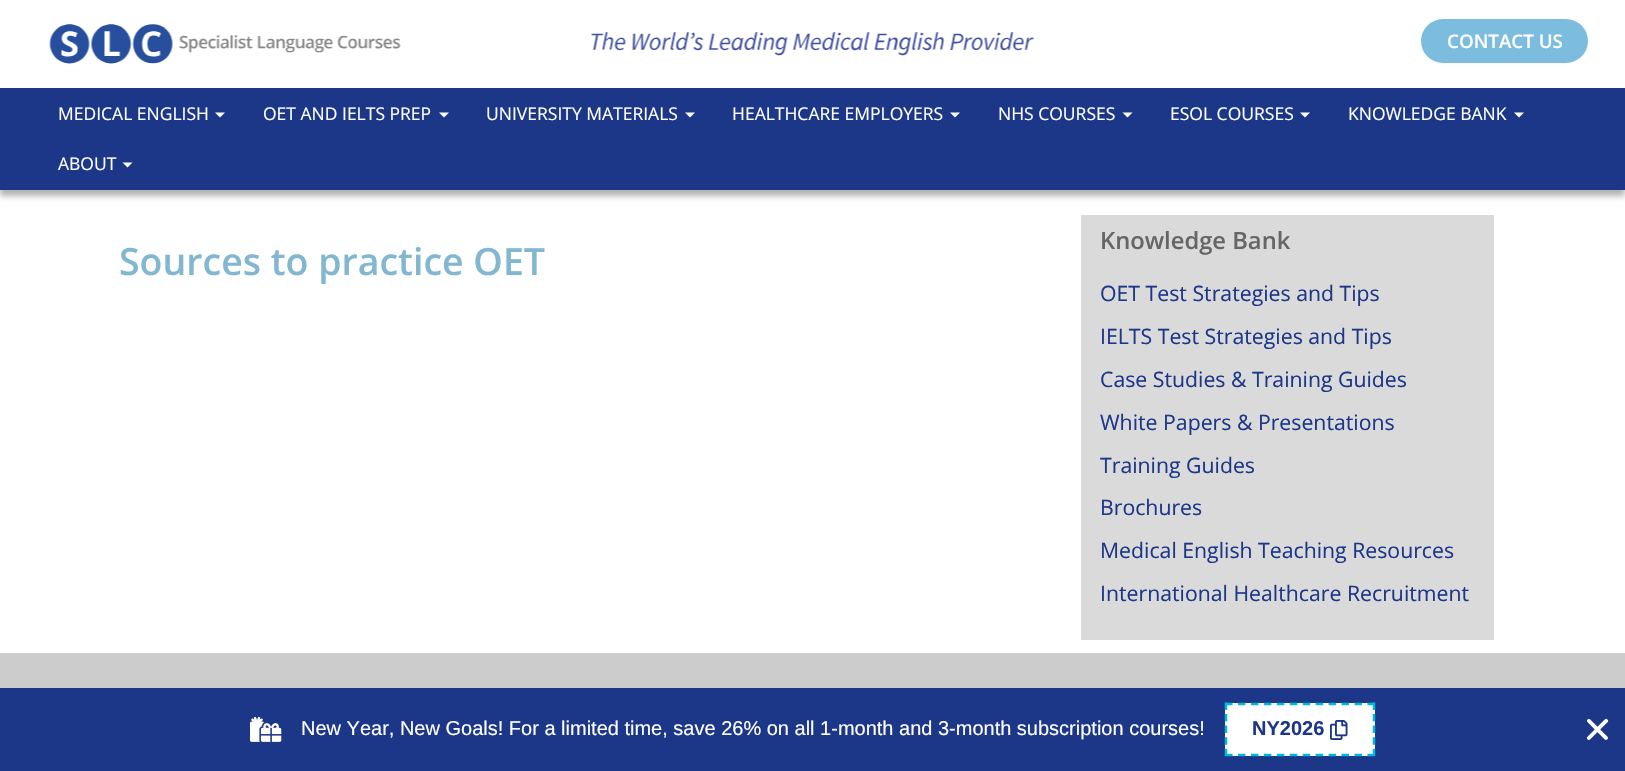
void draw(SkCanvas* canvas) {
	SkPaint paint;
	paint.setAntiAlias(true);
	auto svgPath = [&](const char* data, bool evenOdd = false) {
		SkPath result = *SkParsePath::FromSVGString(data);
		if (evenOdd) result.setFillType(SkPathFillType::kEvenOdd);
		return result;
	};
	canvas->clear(0xffffffff);
	canvas->drawImageRect(SkImages::DeferredFromEncodedData(SkData::MakeFromFileName("img1.png")), SkRect::MakeXYWH(49, 24, 352, 40), SkSamplingOptions());
	canvas->drawImageRect(SkImages::DeferredFromEncodedData(SkData::MakeFromFileName("img2.png")), SkRect::MakeXYWH(591, 32, 443, 24), SkSamplingOptions());
	paint.setColor(0xff7cbddf);
	canvas->drawRoundRect(SkRect::MakeXYWH(1421, 19, 167, 44), 22, 22, paint);
	SkFont f1(fontMgr->matchFamilyStyle("Open Sans", SkFontStyle(600, SkFontStyle::kNormal_Width, SkFontStyle::kUpright_Slant)), 18.75);
	f1.setSubpixel(true);
	paint.setColor(0xffffffff);
	canvas->drawString("CONTACT US", 1447, 48, f1, paint);
	paint.setColor(0x4d000000);
	paint.setMaskFilter(SkMaskFilter::MakeBlur(kNormal_SkBlurStyle, 3));
	canvas->drawRect(SkRect::MakeXYWH(0, 94, 1625, 102), paint);
	paint.setMaskFilter(nullptr);
	paint.setColor(0xff1c3788);
	canvas->drawRect(SkRect::MakeXYWH(0, 88, 1625, 102), paint);
	SkFont f2(fontMgr->matchFamilyStyle("Open Sans", SkFontStyle::Normal()), 17.5);
	f2.setSubpixel(true);
	paint.setColor(0xffffffff);
	canvas->drawString("MEDICAL ENGLISH", 58, 120, f2, paint);
	canvas->drawPath(svgPath("M215 112.5H225L220 117.5Z"), paint);
	canvas->drawString("OET AND IELTS PREP", 263, 120, f2, paint);
	canvas->drawPath(svgPath("M439 112.5H449L444 117.5Z"), paint);
	canvas->drawString("UNIVERSITY MATERIALS", 486, 120, f2, paint);
	canvas->drawPath(svgPath("M685 112.5H695L690 117.5Z"), paint);
	canvas->drawString("HEALTHCARE EMPLOYERS", 732, 120, f2, paint);
	canvas->drawPath(svgPath("M950 112.5H960L955 117.5Z"), paint);
	canvas->drawString("NHS COURSES", 998, 120, f2, paint);
	canvas->drawPath(svgPath("M1122.5 112.5H1132.5L1127.5 117.5Z"), paint);
	canvas->drawString("ESOL COURSES", 1170, 120, f2, paint);
	canvas->drawPath(svgPath("M1300 112.5H1310L1305 117.5Z"), paint);
	canvas->drawString("KNOWLEDGE BANK", 1348, 120, f2, paint);
	canvas->drawPath(svgPath("M1514 112.5H1524L1519 117.5Z"), paint);
	canvas->drawString("ABOUT", 58, 170, f2, paint);
	canvas->drawPath(svgPath("M122.5 162.5H132.5L127.5 167.5Z"), paint);
	SkFont f3(fontMgr->matchFamilyStyle("Open Sans", SkFontStyle(600, SkFontStyle::kNormal_Width, SkFontStyle::kUpright_Slant)), 37.5);
	f3.setSubpixel(true);
	paint.setColor(0xff81b7d0);
	canvas->drawString("Sources to practice OET", 119, 275, f3, paint);
	paint.setColor(0xffdadada);
	canvas->drawRect(SkRect::MakeXYWH(1081, 215, 413, 425), paint);
	SkFont f4(fontMgr->matchFamilyStyle("Open Sans", SkFontStyle(600, SkFontStyle::kNormal_Width, SkFontStyle::kUpright_Slant)), 23.75);
	f4.setSubpixel(true);
	paint.setColor(0xff666666);
	canvas->drawString("Knowledge Bank", 1100, 249, f4, paint);
	SkFont f5(fontMgr->matchFamilyStyle("Open Sans", SkFontStyle::Normal()), 21.25);
	f5.setSubpixel(true);
	paint.setColor(0xff1c3788);
	canvas->drawString("OET Test Strategies and Tips", 1100, 301, f5, paint);
	canvas->drawString("IELTS Test Strategies and Tips", 1100, 344, f5, paint);
	canvas->drawString("Case Studies & Training Guides", 1100, 387, f5, paint);
	canvas->drawString("White Papers & Presentations", 1100, 430, f5, paint);
	canvas->drawString("Training Guides", 1100, 473, f5, paint);
	canvas->drawString("Brochures", 1100, 515, f5, paint);
	canvas->drawString("Medical English Teaching Resources", 1100, 558, f5, paint);
	canvas->drawString("International Healthcare Recruitment", 1100, 601, f5, paint);
	paint.setColor(0xffcccccc);
	canvas->drawRect(SkRect::MakeXYWH(0, 653, 1625, 35), paint);
	paint.setColor(0xff1c3788);
	canvas->drawRect(SkRect::MakeXYWH(0, 688, 1625, 83), paint);
	canvas->drawImageRect(SkImages::DeferredFromEncodedData(SkData::MakeFromFileName("img3.png")), SkRect::MakeXYWH(250, 716, 32, 26), SkSamplingOptions());
	SkFont f6(fontMgr->matchFamilyStyle("Liberation Sans", SkFontStyle::Normal()), 20);
	f6.setSubpixel(true);
	paint.setColor(0xffffffff);
	canvas->drawString("New Year, New Goals! For a limited time, save 26% on all 1-month and 3-month subscription courses!", 301, 735, f6, paint);
	canvas->drawRect(SkRect::MakeXYWH(1225, 703, 150, 53), paint);
	paint.setStroke(true);
	paint.setStrokeWidth(2.5);
	paint.setColor(0xff00b9de);
	paint.setPathEffect(SkDashPathEffect::Make({{7.5f, 5.45f}}, 0));
	canvas->drawPath(svgPath("M1225 704H1375"), paint);
	paint.setPathEffect(nullptr);
	paint.setPathEffect(SkDashPathEffect::Make({{7.5f, 4.06f}}, 0));
	canvas->drawPath(svgPath("M1374 702.5V756"), paint);
	paint.setPathEffect(nullptr);
	paint.setPathEffect(SkDashPathEffect::Make({{7.5f, 5.45f}}, 0));
	canvas->drawPath(svgPath("M1225 755H1375"), paint);
	paint.setPathEffect(nullptr);
	paint.setPathEffect(SkDashPathEffect::Make({{7.5f, 4.06f}}, 0));
	canvas->drawPath(svgPath("M1226 702.5V756"), paint);
	paint.setPathEffect(nullptr);
	SkFont f7(fontMgr->matchFamilyStyle("Liberation Sans", SkFontStyle::Bold()), 20);
	f7.setSubpixel(true);
	paint.setStroke(false);
	paint.setColor(0xff1c3788);
	canvas->drawString("NY2026", 1252, 735, f7, paint);
	canvas->drawImageRect(SkImages::DeferredFromEncodedData(SkData::MakeFromFileName("img4.png")), SkRect::MakeXYWH(1330, 720, 18, 20), SkSamplingOptions());
	canvas->drawImageRect(SkImages::DeferredFromEncodedData(SkData::MakeFromFileName("img5.png")), SkRect::MakeXYWH(1586, 718, 23, 22), SkSamplingOptions());
}
